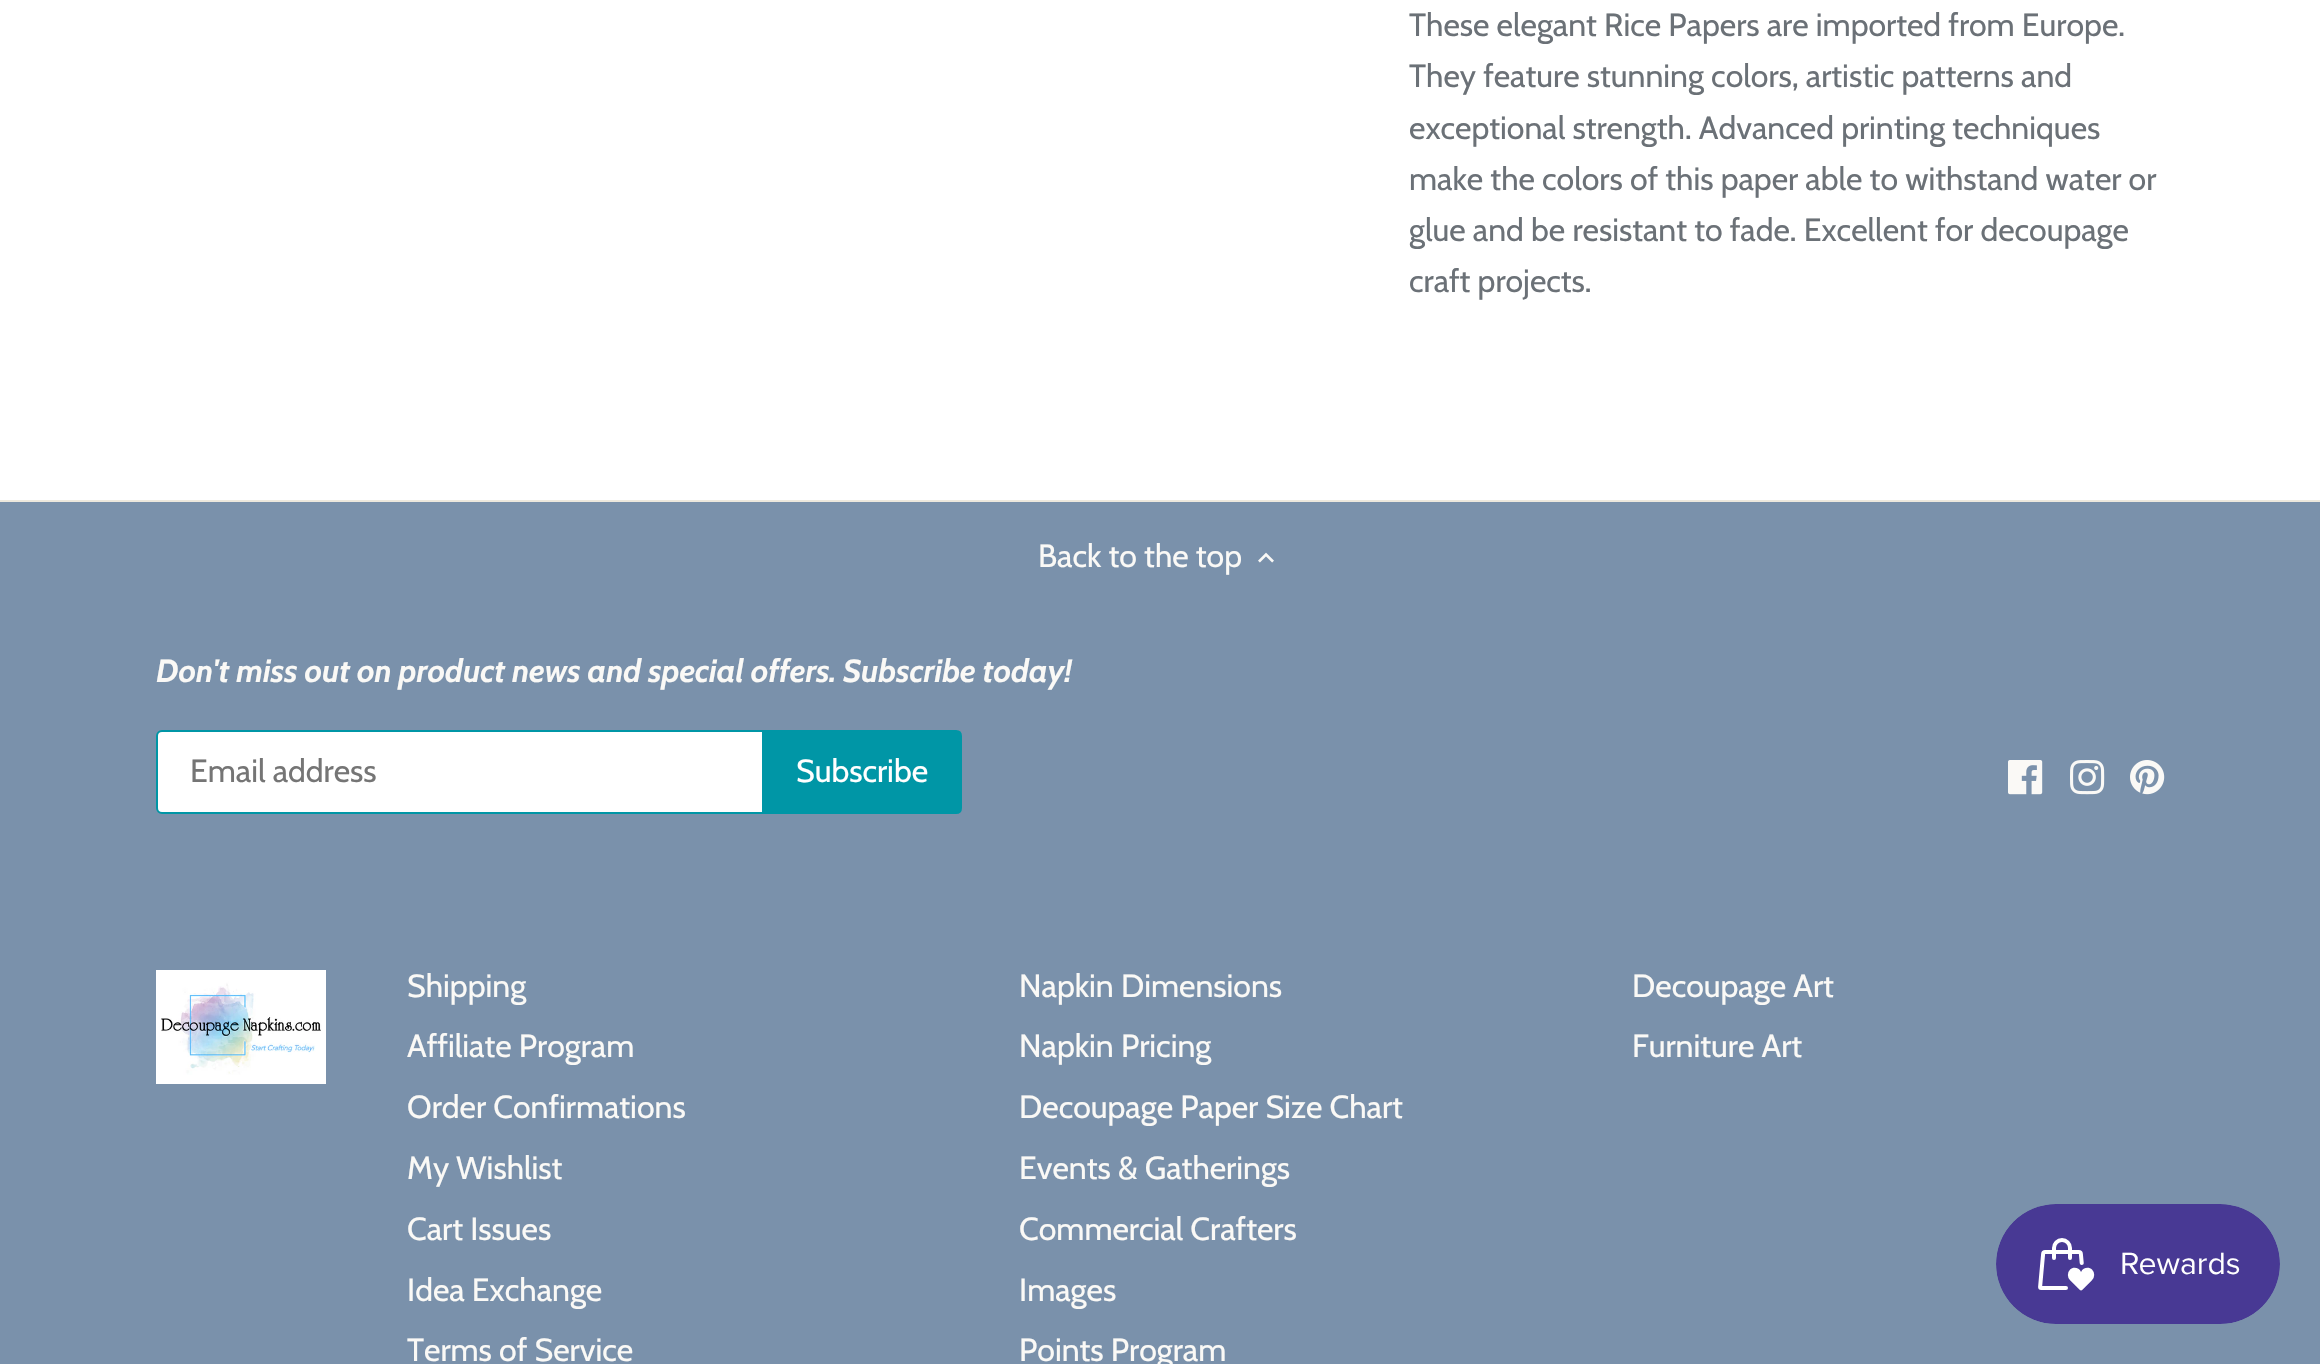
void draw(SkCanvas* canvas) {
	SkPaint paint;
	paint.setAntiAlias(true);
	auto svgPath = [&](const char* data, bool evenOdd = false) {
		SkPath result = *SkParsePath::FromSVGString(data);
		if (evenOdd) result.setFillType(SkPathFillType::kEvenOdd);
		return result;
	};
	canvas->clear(0xff7a91ab);
	paint.setColor(0xffffffff);
	canvas->drawRect(SkRect::MakeXYWH(0, 0, 2320, 500), paint);
	SkFont f1(fontMgr->matchFamilyStyle("Cabin", SkFontStyle::Normal()), 32);
	f1.setSubpixel(true);
	paint.setColor(0xff6b7177);
	canvas->drawString("These elegant Rice Papers are imported from Europe.", 1409, 36, f1, paint);
	canvas->drawString("They feature stunning colors, artistic patterns and", 1409, 87, f1, paint);
	canvas->drawString("exceptional strength. Advanced printing techniques", 1409, 139, f1, paint);
	canvas->drawString("make the colors of this paper able to withstand water or", 1409, 190, f1, paint);
	canvas->drawString("glue and be resistant to fade. Excellent for decoupage", 1409, 241, f1, paint);
	canvas->drawString("craft projects.", 1409, 292, f1, paint);
	paint.setColor(0xffede8dd);
	canvas->drawRect(SkRect::MakeXYWH(0, 500, 2320, 2), paint);
	paint.setColor(0xfffaf9f6);
	canvas->drawString("Back to the top", 1038, 567, f1, paint);
	canvas->drawImageRect(SkImages::DeferredFromEncodedData(SkData::MakeFromFileName("img1.png")), SkRect::MakeXYWH(1258, 552, 16, 11), SkSamplingOptions());
	SkFont f2(fontMgr->matchFamilyStyle("Cabin", SkFontStyle::BoldItalic()), 32);
	f2.setSubpixel(true);
	canvas->drawString("Don't miss out on product news and special offers. Subscribe today!", 156, 682, f2, paint);
	paint.setColor(0xffffffff);
	canvas->drawRoundRect(SkRect::MakeXYWH(157, 731, 802, 82), 5, 5, paint);
	paint.setStroke(true);
	paint.setStrokeWidth(2);
	paint.setColor(0xff0096a6);
	canvas->drawRoundRect(SkRect::MakeXYWH(157, 731, 802, 82), 5, 5, paint);
	paint.setStroke(false);
	paint.setColor(0xff757575);
	canvas->drawString("Email address", 190, 782, f1, paint);
	paint.setColor(0xff0096a6);
	canvas->drawPath(svgPath("M763 731H956C959 731 961 733 961 736V808C961 811 959 813 956 813H763Z"), paint);
	paint.setStroke(true);
	canvas->drawPath(svgPath("M763 731H956C959 731 961 733 961 736V808C961 811 959 813 956 813H763Z"), paint);
	paint.setStroke(false);
	paint.setColor(0xffffffff);
	canvas->drawString("Subscribe", 796, 782, f1, paint);
	canvas->drawImageRect(SkImages::DeferredFromEncodedData(SkData::MakeFromFileName("img2.png")), SkRect::MakeXYWH(2008, 760, 35, 35), SkSamplingOptions());
	canvas->drawImageRect(SkImages::DeferredFromEncodedData(SkData::MakeFromFileName("img3.png")), SkRect::MakeXYWH(2070, 760, 35, 35), SkSamplingOptions());
	canvas->drawImageRect(SkImages::DeferredFromEncodedData(SkData::MakeFromFileName("img4.png")), SkRect::MakeXYWH(2130, 760, 35, 35), SkSamplingOptions());
	canvas->drawImageRect(SkImages::DeferredFromEncodedData(SkData::MakeFromFileName("img5.png")), SkRect::MakeXYWH(156, 970, 170, 114), SkSamplingOptions());
	paint.setColor(0xfffaf9f6);
	canvas->drawString("Shipping", 407, 997, f1, paint);
	canvas->drawString("Affiliate Program", 407, 1057, f1, paint);
	canvas->drawString("Order Confirmations", 407, 1118, f1, paint);
	canvas->drawString("My Wishlist", 407, 1179, f1, paint);
	canvas->drawString("Cart Issues", 407, 1240, f1, paint);
	canvas->drawString("Idea Exchange", 407, 1301, f1, paint);
	canvas->drawString("Terms of Service", 407, 1361, f1, paint);
	canvas->drawString("Napkin Dimensions", 1019, 997, f1, paint);
	canvas->drawString("Napkin Pricing", 1019, 1057, f1, paint);
	canvas->drawString("Decoupage Paper Size Chart", 1019, 1118, f1, paint);
	canvas->drawString("Events & Gatherings", 1019, 1179, f1, paint);
	canvas->drawString("Commercial Crafters", 1019, 1240, f1, paint);
	canvas->drawString("Images", 1019, 1301, f1, paint);
	canvas->drawString("Points Program", 1019, 1361, f1, paint);
	canvas->drawString("Decoupage Art", 1632, 997, f1, paint);
	canvas->drawString("Furniture Art", 1632, 1057, f1, paint);
	canvas->drawImageRect(SkImages::DeferredFromEncodedData(SkData::MakeFromFileName("img6.png")), SkRect::MakeXYWH(1996, 1204, 284, 120), SkSamplingOptions());
}
